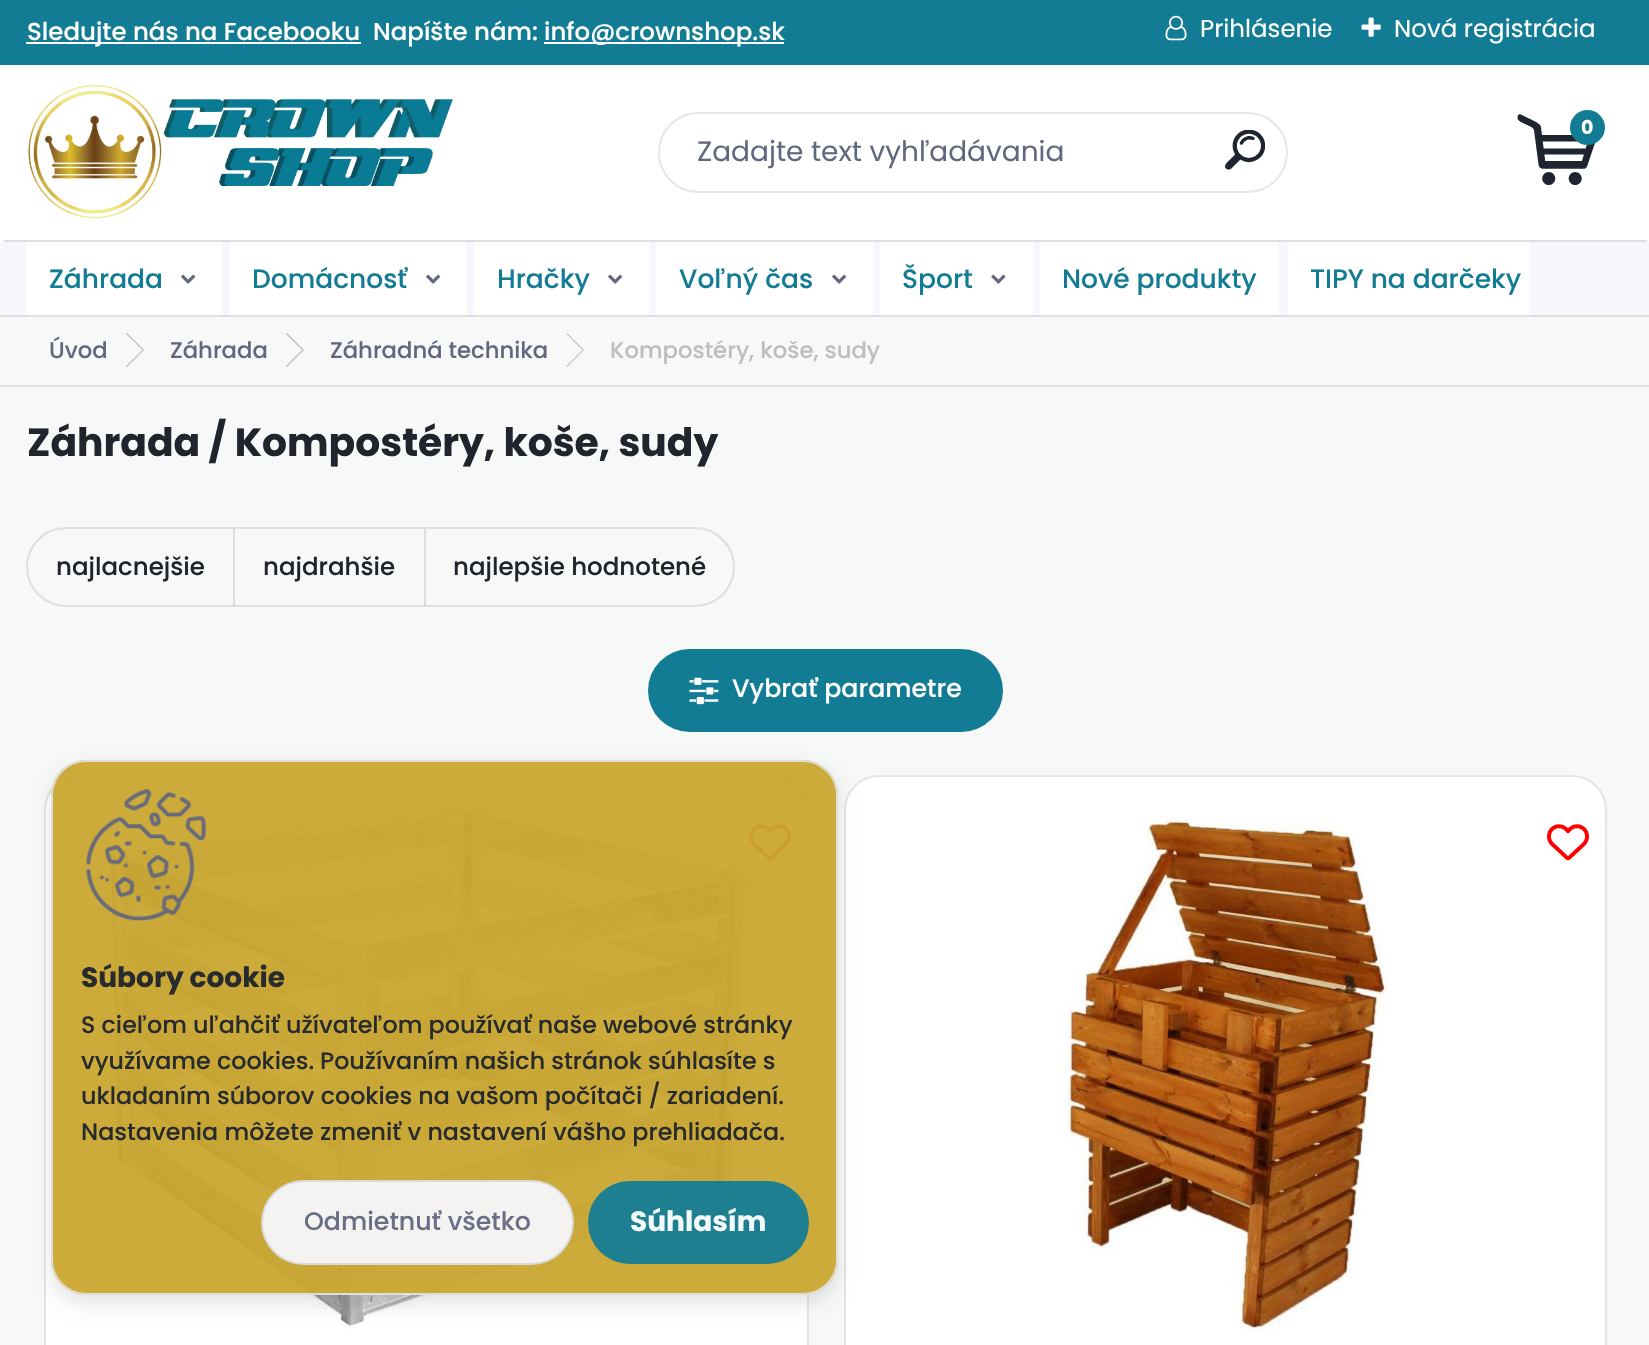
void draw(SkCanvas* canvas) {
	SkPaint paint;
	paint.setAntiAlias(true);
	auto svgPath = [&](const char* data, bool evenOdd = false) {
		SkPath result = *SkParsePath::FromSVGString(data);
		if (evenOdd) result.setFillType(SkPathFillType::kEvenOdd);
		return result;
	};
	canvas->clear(0xffffffff);
	paint.setColor(0xff137c95);
	canvas->drawRect(SkRect::MakeXYWH(0, 0, 1649, 65), paint);
	paint.setColor(0xffffffff);
	canvas->drawRect(SkRect::MakeXYWH(26, 42, 335, 2), paint);
	SkFont f1(fontMgr->matchFamilyStyle("Poppins", SkFontStyle(500, SkFontStyle::kNormal_Width, SkFontStyle::kUpright_Slant)), 24.5);
	f1.setSubpixel(true);
	canvas->drawString("Sledujte nás na Facebooku", 27, 40, f1, paint);
	canvas->drawString("Napíšte nám:", 373, 40, f1, paint);
	canvas->drawRect(SkRect::MakeXYWH(544, 42, 240, 2), paint);
	canvas->drawString("info@crownshop.sk", 544, 40, f1, paint);
	canvas->drawImageRect(SkImages::DeferredFromEncodedData(SkData::MakeFromFileName("img1.png")), SkRect::MakeXYWH(1165, 15, 22, 26), SkSamplingOptions());
	SkFont f2(fontMgr->matchFamilyStyle("Poppins", SkFontStyle::Normal()), 24.5);
	f2.setSubpixel(true);
	canvas->drawString("Prihlásenie", 1200, 37, f2, paint);
	canvas->drawImageRect(SkImages::DeferredFromEncodedData(SkData::MakeFromFileName("img2.png")), SkRect::MakeXYWH(1361, 17, 20, 20), SkSamplingOptions());
	canvas->drawString("Nová registrácia", 1394, 37, f2, paint);
	canvas->drawImageRect(SkImages::DeferredFromEncodedData(SkData::MakeFromFileName("img3.png")), SkRect::MakeXYWH(28, 84, 425, 135), SkSamplingOptions());
	canvas->drawImageRect(SkImages::DeferredFromEncodedData(SkData::MakeFromFileName("img4.png")), SkRect::MakeXYWH(1517, 114, 79, 71), SkSamplingOptions());
	paint.setColor(0xff137c95);
	canvas->drawCircle(1587.5, 127.5, 17.5, paint);
	SkFont f3(fontMgr->matchFamilyStyle("Poppins", SkFontStyle::Bold()), 19);
	f3.setSubpixel(true);
	paint.setColor(0xffffffff);
	canvas->drawString("0", 1581, 134, f3, paint);
	paint.setStroke(true);
	paint.setStrokeWidth(2);
	paint.setColor(0xffe6e6e6);
	canvas->drawRoundRect(SkRect::MakeXYWH(659, 113, 628, 79), 39.5, 39.5, paint);
	SkFont f4(fontMgr->matchFamilyStyle("Poppins", SkFontStyle::Normal()), 28);
	f4.setSubpixel(true);
	paint.setStroke(false);
	paint.setColor(0xff626780);
	canvas->drawString("Zadajte text vyhľadávania", 697, 161, f4, paint);
	canvas->drawImageRect(SkImages::DeferredFromEncodedData(SkData::MakeFromFileName("img5.png")), SkRect::MakeXYWH(1225, 130, 40, 40), SkSamplingOptions());
	paint.setColor(0xfff6f7fc);
	canvas->drawPath(svgPath("M7 240H1643C1647 240 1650 243 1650 247V317H0V247C0 243 3 240 7 240Z"), paint);
	paint.setColor(0x1a000000);
	canvas->drawRect(SkRect::MakeXYWH(4, 240, 1643, 2), paint);
	paint.setColor(0xffdddee3);
	canvas->drawRect(SkRect::MakeXYWH(0, 315, 1649, 2), paint);
	paint.setColor(0xffffffff);
	canvas->drawRect(SkRect::MakeXYWH(26, 242, 196, 73), paint);
	SkFont f5(fontMgr->matchFamilyStyle("Poppins", SkFontStyle(500, SkFontStyle::kNormal_Width, SkFontStyle::kUpright_Slant)), 26.5);
	f5.setSubpixel(true);
	paint.setColor(0xff137c95);
	canvas->drawString("Záhrada", 49, 288, f5, paint);
	canvas->drawImageRect(SkImages::DeferredFromEncodedData(SkData::MakeFromFileName("img6.png")), SkRect::MakeXYWH(181, 274, 15, 10), SkSamplingOptions());
	paint.setColor(0xffffffff);
	canvas->drawRect(SkRect::MakeXYWH(229, 242, 238, 73), paint);
	paint.setColor(0xff137c95);
	canvas->drawString("Domácnosť", 252, 288, f5, paint);
	canvas->drawImageRect(SkImages::DeferredFromEncodedData(SkData::MakeFromFileName("img6.png")), SkRect::MakeXYWH(426, 274, 15, 10), SkSamplingOptions());
	paint.setColor(0xffffffff);
	canvas->drawRect(SkRect::MakeXYWH(474, 242, 175, 73), paint);
	paint.setColor(0xff137c95);
	canvas->drawString("Hračky", 497, 288, f5, paint);
	canvas->drawImageRect(SkImages::DeferredFromEncodedData(SkData::MakeFromFileName("img6.png")), SkRect::MakeXYWH(608, 274, 15, 10), SkSamplingOptions());
	paint.setColor(0xffffffff);
	canvas->drawRect(SkRect::MakeXYWH(656, 242, 217, 73), paint);
	paint.setColor(0xff137c95);
	canvas->drawString("Voľný čas", 679, 288, f5, paint);
	canvas->drawImageRect(SkImages::DeferredFromEncodedData(SkData::MakeFromFileName("img6.png")), SkRect::MakeXYWH(832, 274, 15, 10), SkSamplingOptions());
	paint.setColor(0xffffffff);
	canvas->drawRect(SkRect::MakeXYWH(880, 242, 153, 73), paint);
	paint.setColor(0xff137c95);
	canvas->drawString("Šport", 902, 288, f5, paint);
	canvas->drawImageRect(SkImages::DeferredFromEncodedData(SkData::MakeFromFileName("img7.png")), SkRect::MakeXYWH(991, 274, 15, 10), SkSamplingOptions());
	paint.setColor(0xffffffff);
	canvas->drawRect(SkRect::MakeXYWH(1040, 242, 239, 73), paint);
	paint.setColor(0xff137c95);
	canvas->drawString("Nové produkty", 1062, 288, f5, paint);
	paint.setColor(0xffffffff);
	canvas->drawRect(SkRect::MakeXYWH(1288, 242, 242, 73), paint);
	paint.setColor(0xff137c95);
	canvas->drawString("TIPY na darčeky", 1310, 288, f5, paint);
	paint.setColor(0xfff7f8f8);
	canvas->drawRect(SkRect::MakeXYWH(0, 317, 1649, 1028), paint);
	paint.setColor(0xffdedfdf);
	canvas->drawRect(SkRect::MakeXYWH(0, 385, 1649, 2), paint);
	SkFont f6(fontMgr->matchFamilyStyle("Poppins", SkFontStyle(500, SkFontStyle::kNormal_Width, SkFontStyle::kUpright_Slant)), 22.75);
	f6.setSubpixel(true);
	paint.setColor(0xff626780);
	canvas->drawString("Úvod", 49, 358, f6, paint);
	paint.setColor(0xffbdbebe);
	canvas->drawPath(svgPath("M125.5 333.5H127.5L144 350H142.5ZM142.5 350H144L127.5 366.5H125.5Z"), paint);
	paint.setColor(0xff626780);
	canvas->drawString("Záhrada", 170, 358, f6, paint);
	paint.setColor(0xffbdbebe);
	canvas->drawPath(svgPath("M285.5 333.5H287.5L304 350H302ZM302 350H304L287.5 366.5H285.5Z"), paint);
	paint.setColor(0xff626780);
	canvas->drawString("Záhradná technika", 330, 358, f6, paint);
	paint.setColor(0xffbdbebe);
	canvas->drawPath(svgPath("M566 333.5H567.5L584 350H582.5ZM582.5 350H584L567.5 366.5H566Z"), paint);
	canvas->drawString("Kompostéry, koše, sudy", 610, 358, f6, paint);
	SkFont f7(fontMgr->matchFamilyStyle("Poppins", SkFontStyle::Bold()), 39.25);
	f7.setSubpixel(true);
	paint.setColor(0xff1f242d);
	canvas->drawString("Záhrada / Kompostéry, koše, sudy", 27, 456, f7, paint);
	paint.setStroke(true);
	paint.setColor(0xffdedfdf);
	canvas->drawRoundRect(SkRect::MakeXYWH(27, 528, 707, 78), 39, 39, paint);
	paint.setStroke(false);
	paint.setColor(0x1a000000);
	canvas->drawRect(SkRect::MakeXYWH(233, 529, 2, 77), paint);
	paint.setColor(0xff1f242d);
	canvas->drawString("najlacnejšie", 56, 575, f1, paint);
	paint.setColor(0x1a000000);
	canvas->drawRect(SkRect::MakeXYWH(424, 529, 2, 77), paint);
	paint.setColor(0xff1f242d);
	canvas->drawString("najdrahšie", 263, 575, f1, paint);
	canvas->drawString("najlepšie hodnotené", 453, 575, f1, paint);
	paint.setColor(0xff137c95);
	canvas->drawRoundRect(SkRect::MakeXYWH(648, 649, 355, 83), 41.5, 41.5, paint);
	canvas->drawImageRect(SkImages::DeferredFromEncodedData(SkData::MakeFromFileName("img8.png")), SkRect::MakeXYWH(689, 677, 30, 28), SkSamplingOptions());
	SkFont f8(fontMgr->matchFamilyStyle("Poppins", SkFontStyle(500, SkFontStyle::kNormal_Width, SkFontStyle::kUpright_Slant)), 25.25);
	f8.setSubpixel(true);
	paint.setColor(0xffffffff);
	canvas->drawString("Vybrať parametre", 732, 697, f8, paint);
	canvas->drawRoundRect(SkRect::MakeXYWH(44, 775, 765, 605), 35, 35, paint);
	paint.setStroke(true);
	paint.setColor(0x1a000000);
	canvas->drawRoundRect(SkRect::MakeXYWH(45, 776, 763, 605), 34, 34, paint);
	canvas->drawImageRect(SkImages::DeferredFromEncodedData(SkData::MakeFromFileName("img9.png")), SkRect::MakeXYWH(108, 809, 642, 520), SkSamplingOptions());
	canvas->drawImageRect(SkImages::DeferredFromEncodedData(SkData::MakeFromFileName("img10.png")), SkRect::MakeXYWH(749, 824, 42, 37), SkSamplingOptions());
	paint.setStroke(false);
	paint.setColor(0xffffffff);
	canvas->drawRoundRect(SkRect::MakeXYWH(844, 775, 763, 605), 35, 35, paint);
	paint.setStroke(true);
	paint.setColor(0x1a000000);
	canvas->drawRoundRect(SkRect::MakeXYWH(845, 776, 761, 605), 34, 34, paint);
	canvas->drawImageRect(SkImages::DeferredFromEncodedData(SkData::MakeFromFileName("img11.png")), SkRect::MakeXYWH(1066, 817, 323, 517), SkSamplingOptions());
	canvas->drawImageRect(SkImages::DeferredFromEncodedData(SkData::MakeFromFileName("img10.png")), SkRect::MakeXYWH(1547, 824, 42, 37), SkSamplingOptions());
	canvas->save();
	canvas->clipPath(svgPath("M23 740H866V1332H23ZM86 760H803C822.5 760 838 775.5 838 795V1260C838 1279.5 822.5 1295 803 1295H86C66.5 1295 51 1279.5 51 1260V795C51 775.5 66.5 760 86 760Z", true), true);
	paint.setStroke(false);
	paint.setMaskFilter(SkMaskFilter::MakeBlur(kNormal_SkBlurStyle, 9));
	canvas->drawRoundRect(SkRect::MakeXYWH(51, 768, 787, 536), 35, 35, paint);
	paint.setMaskFilter(nullptr);
	canvas->restore();
	paint.setColor(0xf2c9a62f);
	canvas->drawRoundRect(SkRect::MakeXYWH(51, 760, 787, 535), 35, 35, paint);
	paint.setStroke(true);
	paint.setColor(0xf2e0e0e0);
	canvas->drawRoundRect(SkRect::MakeXYWH(52, 761, 785, 533), 34, 34, paint);
	canvas->drawImageRect(SkImages::DeferredFromEncodedData(SkData::MakeFromFileName("img12.png")), SkRect::MakeXYWH(86, 789, 121, 132), SkSamplingOptions());
	SkFont f9(fontMgr->matchFamilyStyle("Poppins", SkFontStyle::Bold()), 28);
	f9.setSubpixel(true);
	paint.setStroke(false);
	paint.setColor(0xff272b2d);
	canvas->drawString("Súbory cookie", 81, 987, f9, paint);
	SkFont f10(fontMgr->matchFamilyStyle("Poppins", SkFontStyle(500, SkFontStyle::kNormal_Width, SkFontStyle::kUpright_Slant)), 23.8);
	f10.setSubpixel(true);
	canvas->drawString("S cieľom uľahčiť užívateľom používať naše webové stránky", 81, 1033, f10, paint);
	canvas->drawString("využívame cookies.", 81, 1069, f10, paint);
	canvas->drawString("Používaním našich stránok súhlasíte s", 320, 1069, f10, paint);
	canvas->drawString("ukladaním súborov cookies na vašom počítači / zariadení.", 81, 1104, f10, paint);
	canvas->drawString("Nastavenia môžete zmeniť v nastavení vášho prehliadača.", 81, 1140, f10, paint);
	paint.setColor(0xf2f6f7fc);
	canvas->drawRoundRect(SkRect::MakeXYWH(261, 1180, 313, 85), 42.5, 42.5, paint);
	paint.setStroke(true);
	paint.setColor(0x1a000000);
	canvas->drawRoundRect(SkRect::MakeXYWH(262, 1181, 311, 83), 41.5, 41.5, paint);
	paint.setStroke(false);
	paint.setColor(0xff696e86);
	canvas->drawString("Odmietnuť všetko", 304, 1230, f8, paint);
	paint.setColor(0xf2137c95);
	canvas->drawRoundRect(SkRect::MakeXYWH(588, 1181, 221, 83), 41.5, 41.5, paint);
	paint.setColor(0xfff4f9f9);
	canvas->drawString("Súhlasím", 630, 1231, f9, paint);
}
